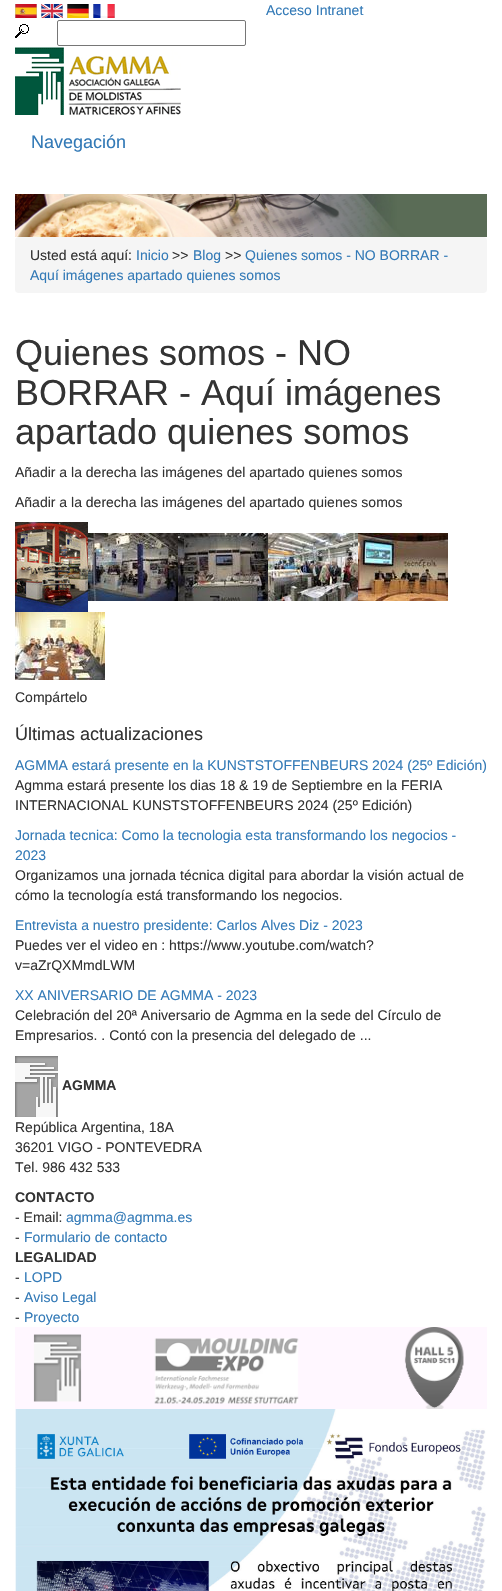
void draw(SkCanvas* canvas) {
	SkPaint paint;
	paint.setAntiAlias(true);
	canvas->clear(0xffffffff);
	canvas->drawImageRect(SkImages::DeferredFromEncodedData(SkData::MakeFromFileName("img1.png")), SkRect::MakeXYWH(15, 4, 22, 14), SkSamplingOptions());
	canvas->drawImageRect(SkImages::DeferredFromEncodedData(SkData::MakeFromFileName("img2.png")), SkRect::MakeXYWH(41, 4, 22, 14), SkSamplingOptions());
	canvas->drawImageRect(SkImages::DeferredFromEncodedData(SkData::MakeFromFileName("img3.png")), SkRect::MakeXYWH(67, 4, 22, 14), SkSamplingOptions());
	canvas->drawImageRect(SkImages::DeferredFromEncodedData(SkData::MakeFromFileName("img4.png")), SkRect::MakeXYWH(93, 4, 22, 14), SkSamplingOptions());
	SkFont f1(fontMgr->matchFamilyStyle("Liberation Sans", SkFontStyle::Normal()), 14);
	f1.setSubpixel(true);
	paint.setColor(0xff337ab7);
	canvas->drawString("Acceso Intranet", 266, 15, f1, paint);
	canvas->drawImageRect(SkImages::DeferredFromEncodedData(SkData::MakeFromFileName("img5.png")), SkRect::MakeXYWH(15, 24, 14, 14), SkSamplingOptions());
	paint.setStroke(true);
	paint.setStrokeWidth(1);
	paint.setColor(0xff767676);
	canvas->drawRoundRect(SkRect::MakeXYWH(57.5, 20.5, 188, 25), 1.5, 1.5, paint);
	canvas->drawImageRect(SkImages::DeferredFromEncodedData(SkData::MakeFromFileName("img6.png")), SkRect::MakeXYWH(15, 47, 166, 68), SkSamplingOptions());
	SkFont f2(fontMgr->matchFamilyStyle("Liberation Sans", SkFontStyle::Normal()), 18);
	f2.setSubpixel(true);
	paint.setStroke(false);
	paint.setColor(0xff337ab7);
	canvas->drawString("Navegación", 31, 148, f2, paint);
	canvas->drawImageRect(SkImages::DeferredFromEncodedData(SkData::MakeFromFileName("img7.png")), SkRect::MakeXYWH(15, 194, 472, 43), SkSamplingOptions());
	paint.setColor(0xfff5f5f5);
	canvas->drawRoundRect(SkRect::MakeXYWH(15, 237, 472, 56), 4, 4, paint);
	paint.setColor(0xff333333);
	canvas->drawString("Usted está aquí:", 30, 260, f1, paint);
	paint.setColor(0xff337ab7);
	canvas->drawString("Inicio", 136, 260, f1, paint);
	paint.setColor(0xff333333);
	canvas->drawString(">>", 172, 260, f1, paint);
	paint.setColor(0xff337ab7);
	canvas->drawString("Blog", 193, 260, f1, paint);
	paint.setColor(0xff333333);
	canvas->drawString(">>", 225, 260, f1, paint);
	paint.setColor(0xff337ab7);
	canvas->drawString("Quienes somos - NO BORRAR -", 245, 260, f1, paint);
	canvas->drawString("Aquí imágenes apartado quienes somos", 30, 280, f1, paint);
	SkFont f3(fontMgr->matchFamilyStyle("Liberation Sans", SkFontStyle::Normal()), 36);
	f3.setSubpixel(true);
	paint.setColor(0xff333333);
	canvas->drawString("Quienes somos - NO", 15, 365, f3, paint);
	canvas->drawString("BORRAR - Aquí imágenes", 15, 405, f3, paint);
	canvas->drawString("apartado quienes somos", 15, 444, f3, paint);
	canvas->drawString("Añadir a la derecha las imágenes del apartado quienes somos", 15, 477, f1, paint);
	canvas->drawString("Añadir a la derecha las imágenes del apartado quienes somos", 15, 507, f1, paint);
	canvas->drawImageRect(SkImages::DeferredFromEncodedData(SkData::MakeFromFileName("img8.png")), SkRect::MakeXYWH(15, 522, 73, 90), SkSamplingOptions());
	canvas->drawImageRect(SkImages::DeferredFromEncodedData(SkData::MakeFromFileName("img9.png")), SkRect::MakeXYWH(88, 533, 90, 68), SkSamplingOptions());
	canvas->drawImageRect(SkImages::DeferredFromEncodedData(SkData::MakeFromFileName("img10.png")), SkRect::MakeXYWH(178, 533, 90, 68), SkSamplingOptions());
	canvas->drawImageRect(SkImages::DeferredFromEncodedData(SkData::MakeFromFileName("img11.png")), SkRect::MakeXYWH(268, 533, 90, 68), SkSamplingOptions());
	canvas->drawImageRect(SkImages::DeferredFromEncodedData(SkData::MakeFromFileName("img12.png")), SkRect::MakeXYWH(358, 533, 90, 68), SkSamplingOptions());
	canvas->drawImageRect(SkImages::DeferredFromEncodedData(SkData::MakeFromFileName("img13.png")), SkRect::MakeXYWH(15, 612, 90, 68), SkSamplingOptions());
	canvas->drawString("Compártelo", 15, 702, f1, paint);
	canvas->drawString("Últimas actualizaciones", 15, 740, f2, paint);
	paint.setColor(0xff337ab7);
	canvas->drawString("AGMMA estará presente en la KUNSTSTOFFENBEURS 2024 (25º Edición)", 15, 770, f1, paint);
	paint.setColor(0xff333333);
	canvas->drawString("Agmma estará presente los dias 18 & 19 de Septiembre en la FERIA", 15, 790, f1, paint);
	canvas->drawString("INTERNACIONAL KUNSTSTOFFENBEURS 2024 (25º Edición)", 15, 810, f1, paint);
	paint.setColor(0xff337ab7);
	canvas->drawString("Jornada tecnica: Como la tecnologia esta transformando los negocios -", 15, 840, f1, paint);
	canvas->drawString("2023", 15, 860, f1, paint);
	paint.setColor(0xff333333);
	canvas->drawString("Organizamos una jornada técnica digital para abordar la visión actual de", 15, 880, f1, paint);
	canvas->drawString("cómo la tecnología está transformando los negocios.", 15, 900, f1, paint);
	paint.setColor(0xff337ab7);
	canvas->drawString("Entrevista a nuestro presidente: Carlos Alves Diz - 2023", 15, 930, f1, paint);
	paint.setColor(0xff333333);
	canvas->drawString("Puedes ver el video en : https://www.youtube.com/watch?", 15, 950, f1, paint);
	canvas->drawString("v=aZrQXMmdLWM", 15, 970, f1, paint);
	paint.setColor(0xff337ab7);
	canvas->drawString("XX ANIVERSARIO DE AGMMA - 2023", 15, 1000, f1, paint);
	paint.setColor(0xff333333);
	canvas->drawString("Celebración del 20ª Aniversario de Agmma en la sede del Círculo de", 15, 1020, f1, paint);
	canvas->drawString("Empresarios. . Contó con la presencia del delegado de ...", 15, 1040, f1, paint);
	canvas->drawImageRect(SkImages::DeferredFromEncodedData(SkData::MakeFromFileName("img14.png")), SkRect::MakeXYWH(15, 1056, 43, 61), SkSamplingOptions());
	SkFont f4(fontMgr->matchFamilyStyle("Liberation Sans", SkFontStyle::Bold()), 14);
	f4.setSubpixel(true);
	canvas->drawString("AGMMA", 62, 1090, f4, paint);
	canvas->drawString("República Argentina, 18A", 15, 1132, f1, paint);
	canvas->drawString("36201 VIGO - PONTEVEDRA", 15, 1152, f1, paint);
	canvas->drawString("Tel. 986 432 533", 15, 1172, f1, paint);
	canvas->drawString("CONTACTO", 15, 1202, f4, paint);
	canvas->drawString("- Email:", 15, 1222, f1, paint);
	paint.setColor(0xff337ab7);
	canvas->drawString("agmma@agmma.es", 66, 1222, f1, paint);
	paint.setColor(0xff333333);
	canvas->drawString("-", 15, 1242, f1, paint);
	paint.setColor(0xff337ab7);
	canvas->drawString("Formulario de contacto", 24, 1242, f1, paint);
	paint.setColor(0xff333333);
	canvas->drawString("LEGALIDAD", 15, 1262, f4, paint);
	canvas->drawString("-", 15, 1282, f1, paint);
	paint.setColor(0xff337ab7);
	canvas->drawString("LOPD", 24, 1282, f1, paint);
	paint.setColor(0xff333333);
	canvas->drawString("-", 15, 1302, f1, paint);
	paint.setColor(0xff337ab7);
	canvas->drawString("Aviso Legal", 24, 1302, f1, paint);
	paint.setColor(0xff333333);
	canvas->drawString("-", 15, 1322, f1, paint);
	paint.setColor(0xff337ab7);
	canvas->drawString("Proyecto", 24, 1322, f1, paint);
	canvas->drawImageRect(SkImages::DeferredFromEncodedData(SkData::MakeFromFileName("img15.png")), SkRect::MakeXYWH(15, 1327, 472, 82), SkSamplingOptions());
	canvas->drawImageRect(SkImages::DeferredFromEncodedData(SkData::MakeFromFileName("img16.png")), SkRect::MakeXYWH(15, 1409, 471, 182), SkSamplingOptions());
}
